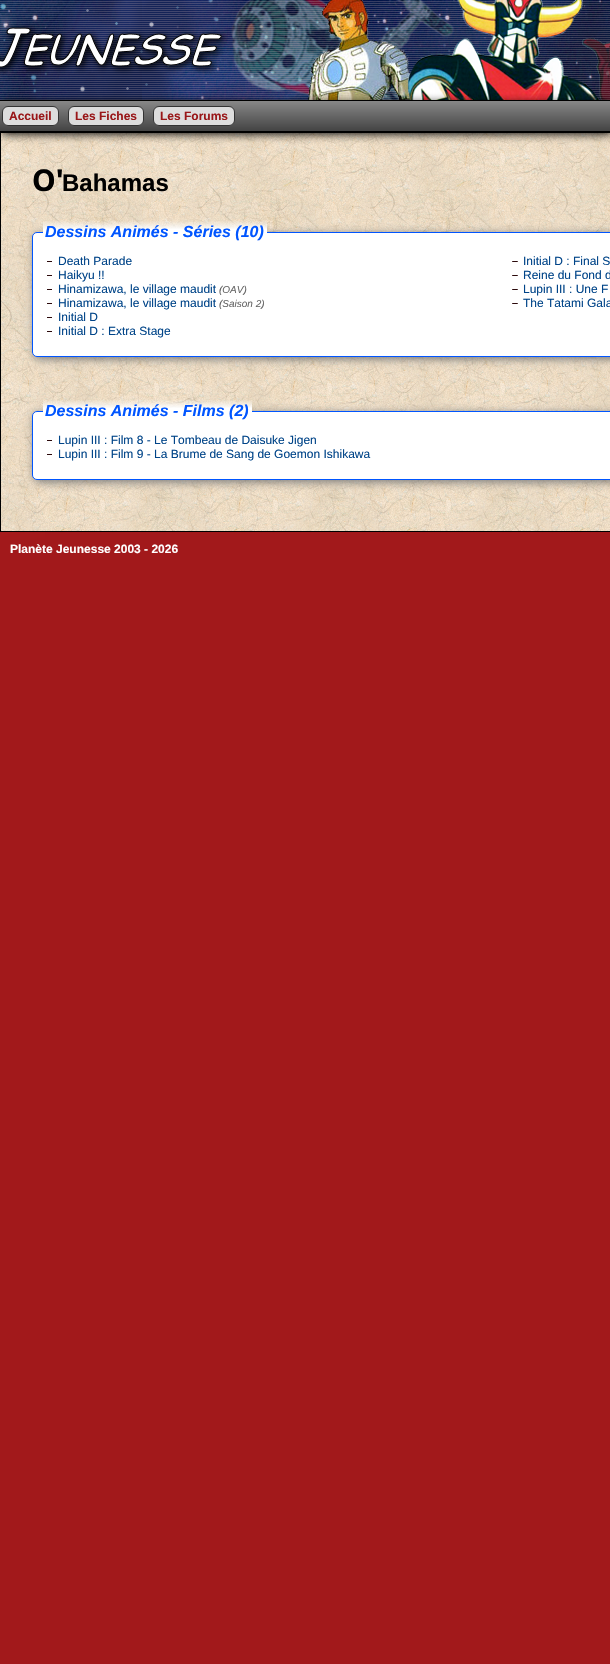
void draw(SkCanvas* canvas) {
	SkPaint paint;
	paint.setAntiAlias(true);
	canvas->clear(0xffa2191b);
	canvas->drawImageRect(SkImages::DeferredFromEncodedData(SkData::MakeFromFileName("img1.png")), SkRect::MakeXYWH(0, 532, 45, 8), SkSamplingOptions());
	canvas->drawImageRect(SkImages::DeferredFromEncodedData(SkData::MakeFromFileName("img2.png")), SkRect::MakeXYWH(0, 0, 610, 100), SkSamplingOptions());
	paint.setColor(0xff000000);
	canvas->drawRect(SkRect::MakeXYWH(0, 100, 610, 1), paint);
	canvas->drawImageRect(SkImages::DeferredFromEncodedData(SkData::MakeFromFileName("img3.png")), SkRect::MakeXYWH(0, 24, 228, 51), SkSamplingOptions());
	canvas->drawImageRect(SkImages::DeferredFromEncodedData(SkData::MakeFromFileName("img5.png")), SkRect::MakeXYWH(1, 133, 609, 398), SkSamplingOptions());
	paint.setStroke(true);
	paint.setStrokeWidth(1);
	canvas->drawRect(SkRect::MakeXYWH(0.5, 132.5, 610, 399), paint);
	paint.setStroke(false);
	paint.setMaskFilter(SkMaskFilter::MakeBlur(kNormal_SkBlurStyle, 5));
	canvas->drawRect(SkRect::MakeXYWH(2, 103, 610, 31), paint);
	paint.setMaskFilter(nullptr);
	canvas->drawImageRect(SkImages::DeferredFromEncodedData(SkData::MakeFromFileName("img4.png")), SkRect::MakeXYWH(0, 101, 610, 30), SkSamplingOptions());
	canvas->drawRect(SkRect::MakeXYWH(0, 131, 610, 1), paint);
	paint.setColor(0xffdddddd);
	canvas->drawRoundRect(SkRect::MakeXYWH(2.5, 106.5, 56, 19), 5.5, 5.5, paint);
	paint.setStroke(true);
	paint.setColor(0xff333333);
	canvas->drawRoundRect(SkRect::MakeXYWH(2.5, 106.5, 56, 19), 5.5, 5.5, paint);
	SkFont f1(fontMgr->matchFamilyStyle("Liberation Sans", SkFontStyle::Bold()), 12);
	f1.setSubpixel(true);
	paint.setStroke(false);
	paint.setColor(0xff991719);
	canvas->drawString("Accueil", 9, 120, f1, paint);
	paint.setColor(0xffdddddd);
	canvas->drawRoundRect(SkRect::MakeXYWH(68.5, 106.5, 75, 19), 5.5, 5.5, paint);
	paint.setStroke(true);
	paint.setColor(0xff333333);
	canvas->drawRoundRect(SkRect::MakeXYWH(68.5, 106.5, 75, 19), 5.5, 5.5, paint);
	paint.setStroke(false);
	paint.setColor(0xff991719);
	canvas->drawString("Les Fiches", 75, 120, f1, paint);
	paint.setColor(0xffdddddd);
	canvas->drawRoundRect(SkRect::MakeXYWH(153.5, 106.5, 81, 19), 5.5, 5.5, paint);
	paint.setStroke(true);
	paint.setColor(0xff333333);
	canvas->drawRoundRect(SkRect::MakeXYWH(153.5, 106.5, 81, 19), 5.5, 5.5, paint);
	paint.setStroke(false);
	paint.setColor(0xff991719);
	canvas->drawString("Les Forums", 160, 120, f1, paint);
	SkFont f2(fontMgr->matchFamilyStyle("Noto Sans", SkFontStyle::Bold()), 30);
	f2.setSubpixel(true);
	paint.setColor(0xff000000);
	canvas->drawString("O'", 32, 191, f2, paint);
	SkFont f3(fontMgr->matchFamilyStyle("Liberation Sans", SkFontStyle::Bold()), 24);
	f3.setSubpixel(true);
	canvas->drawString("Bahamas", 62, 191, f3, paint);
	paint.setColor(0xff777777);
	paint.setMaskFilter(SkMaskFilter::MakeBlur(kNormal_SkBlurStyle, 5));
	canvas->drawRoundRect(SkRect::MakeXYWH(34, 234, 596, 125), 5, 5, paint);
	paint.setMaskFilter(nullptr);
	paint.setColor(0xffffffff);
	canvas->drawRoundRect(SkRect::MakeXYWH(32.5, 232.5, 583, 124), 4.5, 4.5, paint);
	paint.setStroke(true);
	paint.setColor(0xff0055ff);
	canvas->drawRoundRect(SkRect::MakeXYWH(32.5, 232.5, 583, 124), 4.5, 4.5, paint);
	canvas->drawImageRect(SkImages::DeferredFromEncodedData(SkData::MakeFromFileName("img6.png")), SkRect::MakeXYWH(43, 221, 224, 12), SkSamplingOptions());
	SkFont f4(fontMgr->matchFamilyStyle("Liberation Sans", SkFontStyle::BoldItalic()), 16);
	f4.setSubpixel(true);
	paint.setStroke(false);
	canvas->drawString("Dessins Animés - Séries (10)", 45, 237, f4, paint);
	paint.setColor(0xff2c0a0c);
	canvas->drawRect(SkRect::MakeXYWH(47, 261, 5, 1), paint);
	SkFont f5(fontMgr->matchFamilyStyle("Liberation Sans", SkFontStyle::Normal()), 12);
	f5.setSubpixel(true);
	paint.setColor(0xff004488);
	canvas->drawString("Death Parade", 58, 265, f5, paint);
	paint.setColor(0xff2c0a0c);
	canvas->drawRect(SkRect::MakeXYWH(47, 275, 5, 1), paint);
	paint.setColor(0xff004488);
	canvas->drawString("Haikyu !!", 58, 279, f5, paint);
	paint.setColor(0xff2c0a0c);
	canvas->drawRect(SkRect::MakeXYWH(47, 289, 5, 1), paint);
	paint.setColor(0xff004488);
	canvas->drawString("Hinamizawa, le village maudit", 58, 293, f5, paint);
	SkFont f6(fontMgr->matchFamilyStyle("Liberation Sans", SkFontStyle::Italic()), 10);
	f6.setSubpixel(true);
	paint.setColor(0xff666666);
	canvas->drawString("(OAV)", 219, 293, f6, paint);
	paint.setColor(0xff2c0a0c);
	canvas->drawRect(SkRect::MakeXYWH(47, 303, 5, 1), paint);
	paint.setColor(0xff004488);
	canvas->drawString("Hinamizawa, le village maudit", 58, 307, f5, paint);
	paint.setColor(0xff666666);
	canvas->drawString("(Saison 2)", 219, 307, f6, paint);
	paint.setColor(0xff2c0a0c);
	canvas->drawRect(SkRect::MakeXYWH(47, 317, 5, 1), paint);
	paint.setColor(0xff004488);
	canvas->drawString("Initial D", 58, 321, f5, paint);
	paint.setColor(0xff2c0a0c);
	canvas->drawRect(SkRect::MakeXYWH(47, 331, 5, 1), paint);
	paint.setColor(0xff004488);
	canvas->drawString("Initial D : Extra Stage", 58, 335, f5, paint);
	canvas->drawImageRect(SkImages::DeferredFromEncodedData(SkData::MakeFromFileName("img7.png")), SkRect::MakeXYWH(512, 261, 6, 1), SkSamplingOptions());
	canvas->drawString("Initial D : Final S", 523, 265, f5, paint);
	canvas->drawImageRect(SkImages::DeferredFromEncodedData(SkData::MakeFromFileName("img7.png")), SkRect::MakeXYWH(512, 275, 6, 1), SkSamplingOptions());
	canvas->drawString("Reine du Fond d", 523, 279, f5, paint);
	canvas->drawImageRect(SkImages::DeferredFromEncodedData(SkData::MakeFromFileName("img7.png")), SkRect::MakeXYWH(512, 289, 6, 1), SkSamplingOptions());
	canvas->drawString("Lupin III : Une F", 523, 293, f5, paint);
	canvas->drawImageRect(SkImages::DeferredFromEncodedData(SkData::MakeFromFileName("img7.png")), SkRect::MakeXYWH(512, 303, 6, 1), SkSamplingOptions());
	canvas->drawString("The Tatami Gala", 523, 307, f5, paint);
	paint.setColor(0xff777777);
	paint.setMaskFilter(SkMaskFilter::MakeBlur(kNormal_SkBlurStyle, 5));
	canvas->drawRoundRect(SkRect::MakeXYWH(34, 413, 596, 69), 5, 5, paint);
	paint.setMaskFilter(nullptr);
	paint.setColor(0xffffffff);
	canvas->drawRoundRect(SkRect::MakeXYWH(32.5, 411.5, 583, 68), 4.5, 4.5, paint);
	paint.setStroke(true);
	paint.setColor(0xff0055ff);
	canvas->drawRoundRect(SkRect::MakeXYWH(32.5, 411.5, 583, 68), 4.5, 4.5, paint);
	canvas->drawImageRect(SkImages::DeferredFromEncodedData(SkData::MakeFromFileName("img8.png")), SkRect::MakeXYWH(43, 400, 209, 12), SkSamplingOptions());
	paint.setStroke(false);
	canvas->drawString("Dessins Animés - Films (2)", 45, 416, f4, paint);
	paint.setColor(0xff2c0a0c);
	canvas->drawRect(SkRect::MakeXYWH(47, 440, 5, 1), paint);
	paint.setColor(0xff004488);
	canvas->drawString("Lupin III : Film 8 - Le Tombeau de Daisuke Jigen", 58, 444, f5, paint);
	paint.setColor(0xff2c0a0c);
	canvas->drawRect(SkRect::MakeXYWH(47, 454, 5, 1), paint);
	paint.setColor(0xff004488);
	canvas->drawString("Lupin III : Film 9 - La Brume de Sang de Goemon Ishikawa", 58, 458, f5, paint);
	paint.setColor(0xffffffff);
	canvas->drawString("Planète Jeunesse 2003 - 2026", 10, 553, f1, paint);
}
